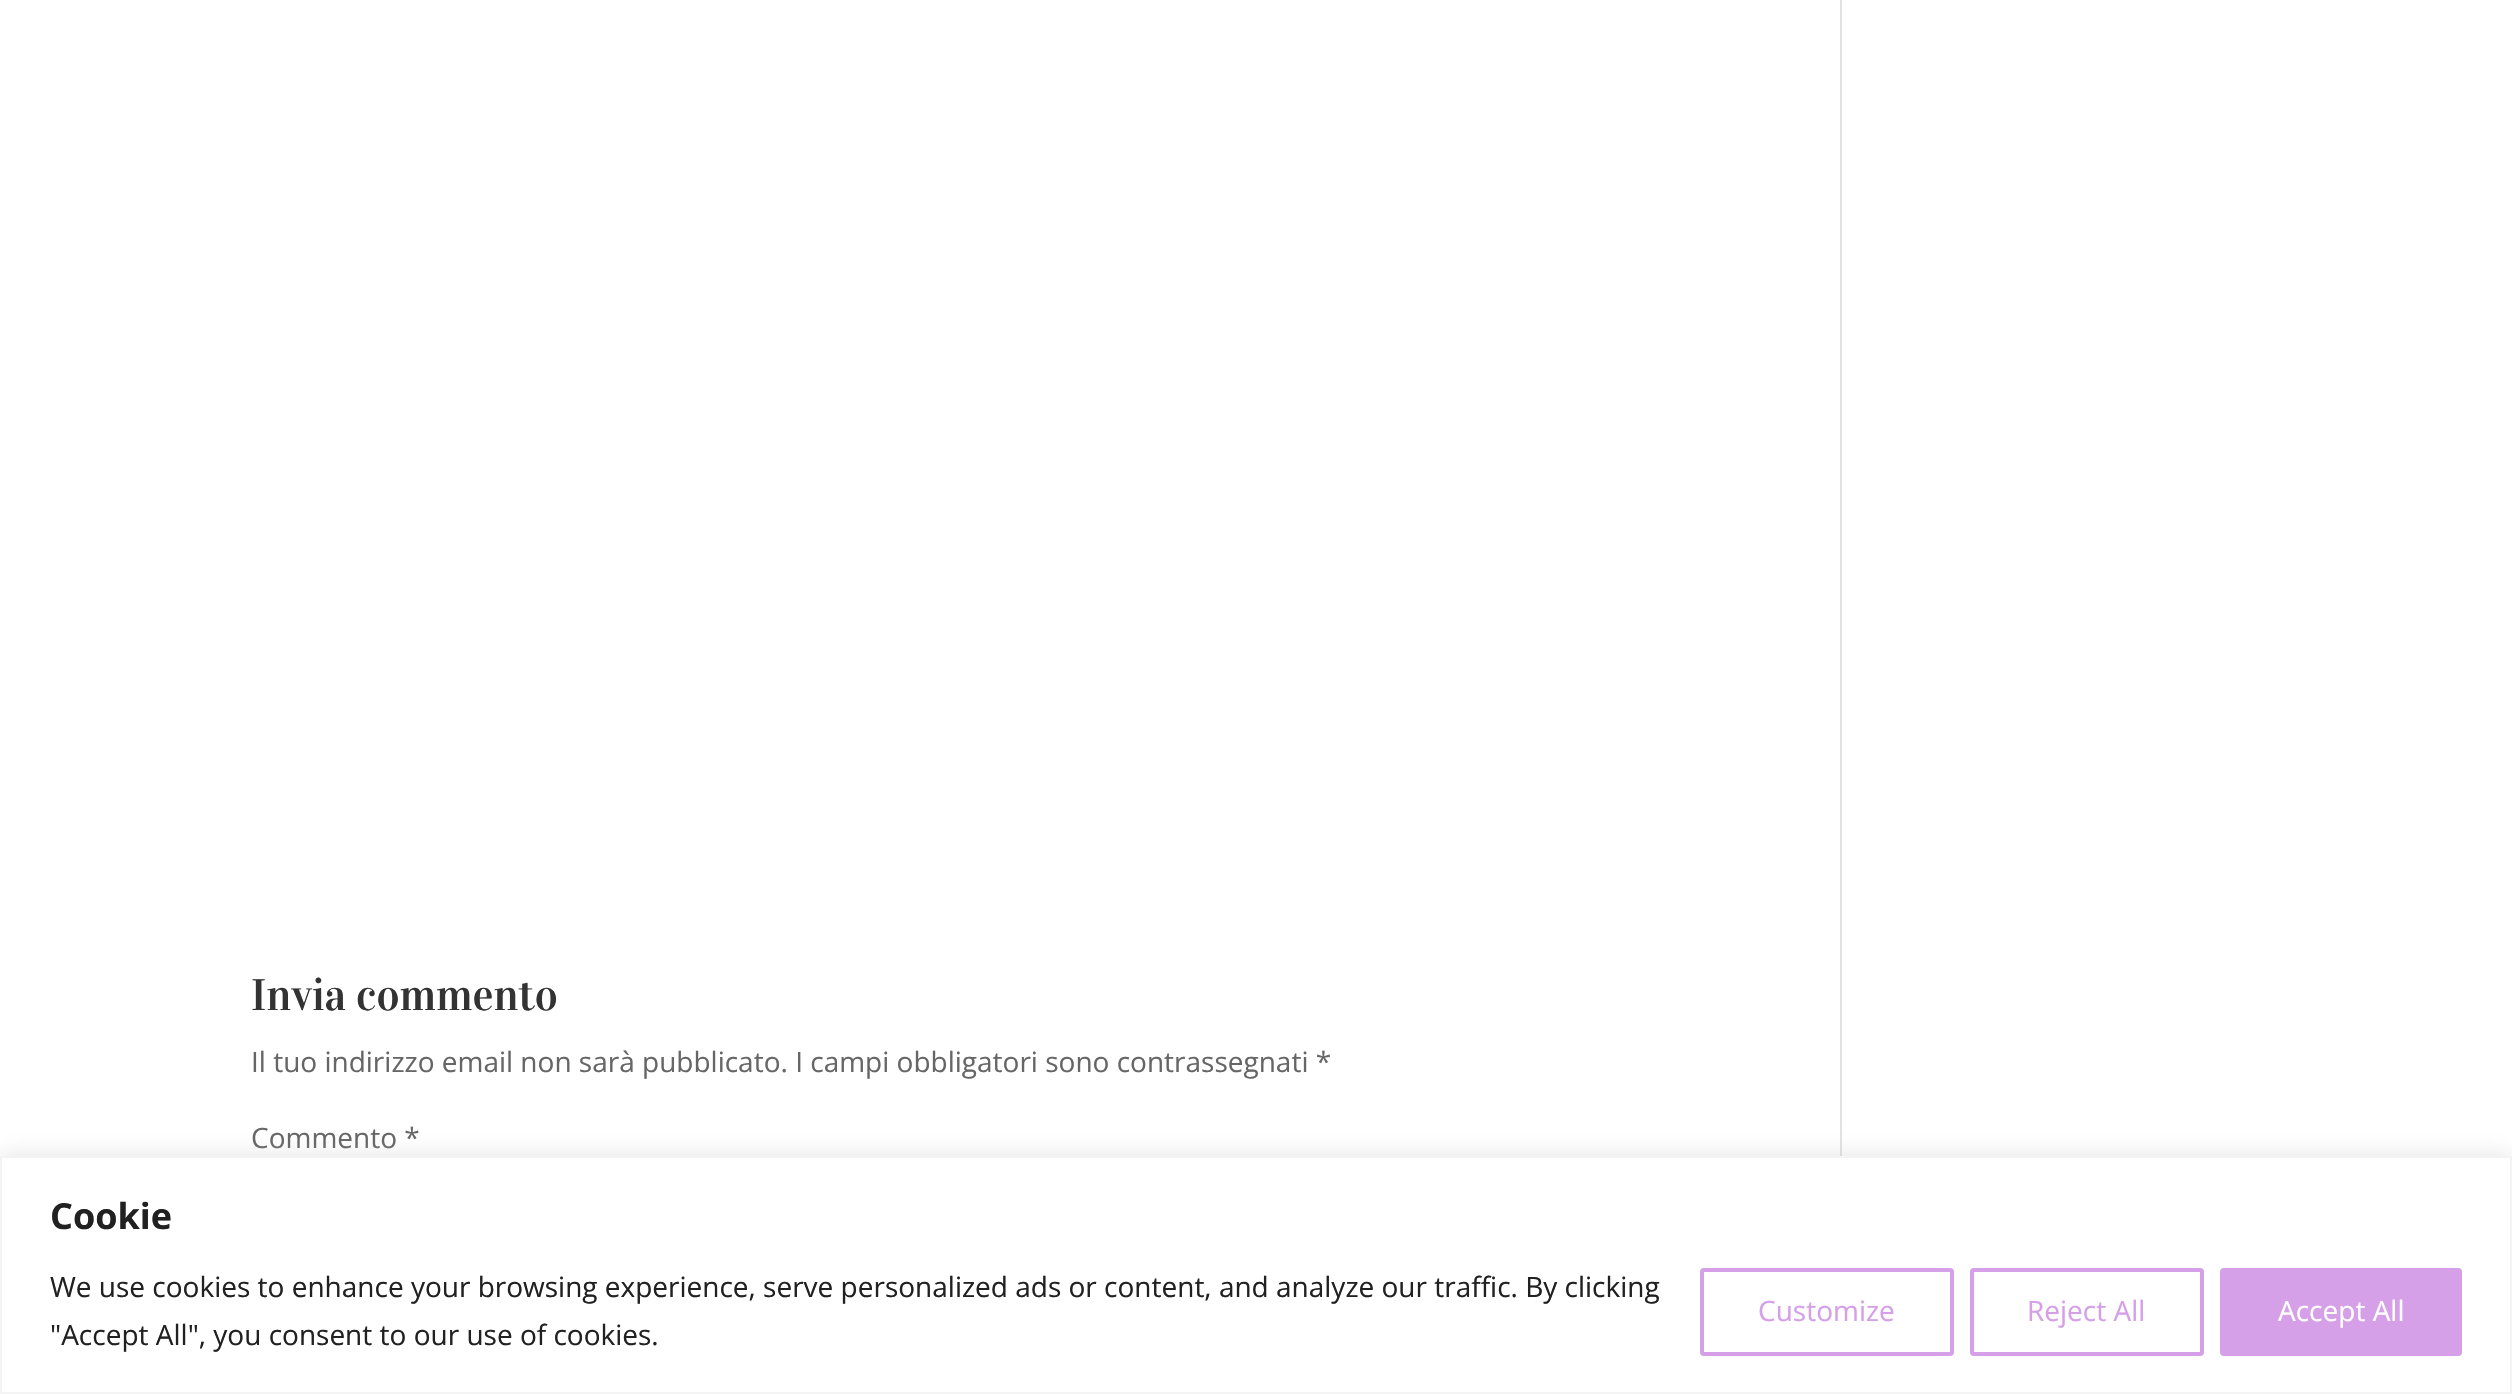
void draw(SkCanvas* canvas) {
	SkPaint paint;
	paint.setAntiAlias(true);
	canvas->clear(0xffffffff);
	SkFont f1(fontMgr->matchFamilyStyle("Vidaloka", SkFontStyle::Normal()), 44);
	f1.setSubpixel(true);
	paint.setColor(0xff333333);
	canvas->drawString("Invia commento", 251, 1010, f1, paint);
	SkFont f2(fontMgr->matchFamilyStyle("Open Sans", SkFontStyle::Normal()), 28);
	f2.setSubpixel(true);
	paint.setColor(0xff666666);
	canvas->drawString("Il tuo indirizzo email non sarà pubblicato. I campi obbligatori sono contrassegnati *", 251, 1072, f2, paint);
	canvas->drawString("Commento *", 251, 1148, f2, paint);
	paint.setColor(0xffe2e2e2);
	canvas->drawRect(SkRect::MakeXYWH(1840, 0, 2, 1156), paint);
	paint.setColor(0x4dacabab);
	paint.setMaskFilter(SkMaskFilter::MakeBlur(kNormal_SkBlurStyle, 10));
	canvas->drawRect(SkRect::MakeXYWH(0, 1154, 2512, 238), paint);
	paint.setMaskFilter(nullptr);
	paint.setColor(0xffffffff);
	canvas->drawRect(SkRect::MakeXYWH(1, 1157, 2510, 236), paint);
	paint.setStroke(true);
	paint.setStrokeWidth(2);
	paint.setColor(0xfff4f4f4);
	canvas->drawRect(SkRect::MakeXYWH(1, 1157, 2510, 236), paint);
	SkFont f3(fontMgr->matchFamilyStyle("Open Sans", SkFontStyle::Bold()), 36);
	f3.setSubpixel(true);
	paint.setStroke(false);
	paint.setColor(0xff212121);
	canvas->drawString("Cookie", 50, 1229, f3, paint);
	canvas->drawString("We use cookies to enhance your browsing experience, serve personalized ads or content, and analyze our traffic. By clicking", 50, 1297, f2, paint);
	canvas->drawString("\"Accept All\", you consent to our use of cookies.", 50, 1345, f2, paint);
	paint.setStroke(true);
	paint.setStrokeWidth(4);
	paint.setColor(0xffd5a0e8);
	canvas->drawRoundRect(SkRect::MakeXYWH(1702, 1270, 250, 84), 2, 2, paint);
	paint.setStroke(false);
	canvas->drawString("Customize", 1758, 1321, f2, paint);
	paint.setStroke(true);
	canvas->drawRoundRect(SkRect::MakeXYWH(1972, 1270, 230, 84), 2, 2, paint);
	paint.setStroke(false);
	canvas->drawString("Reject All", 2027, 1321, f2, paint);
	canvas->drawRoundRect(SkRect::MakeXYWH(2222, 1270, 238, 84), 2, 2, paint);
	paint.setStroke(true);
	canvas->drawRoundRect(SkRect::MakeXYWH(2222, 1270, 238, 84), 2, 2, paint);
	paint.setStroke(false);
	paint.setColor(0xffffffff);
	canvas->drawString("Accept All", 2278, 1321, f2, paint);
}
